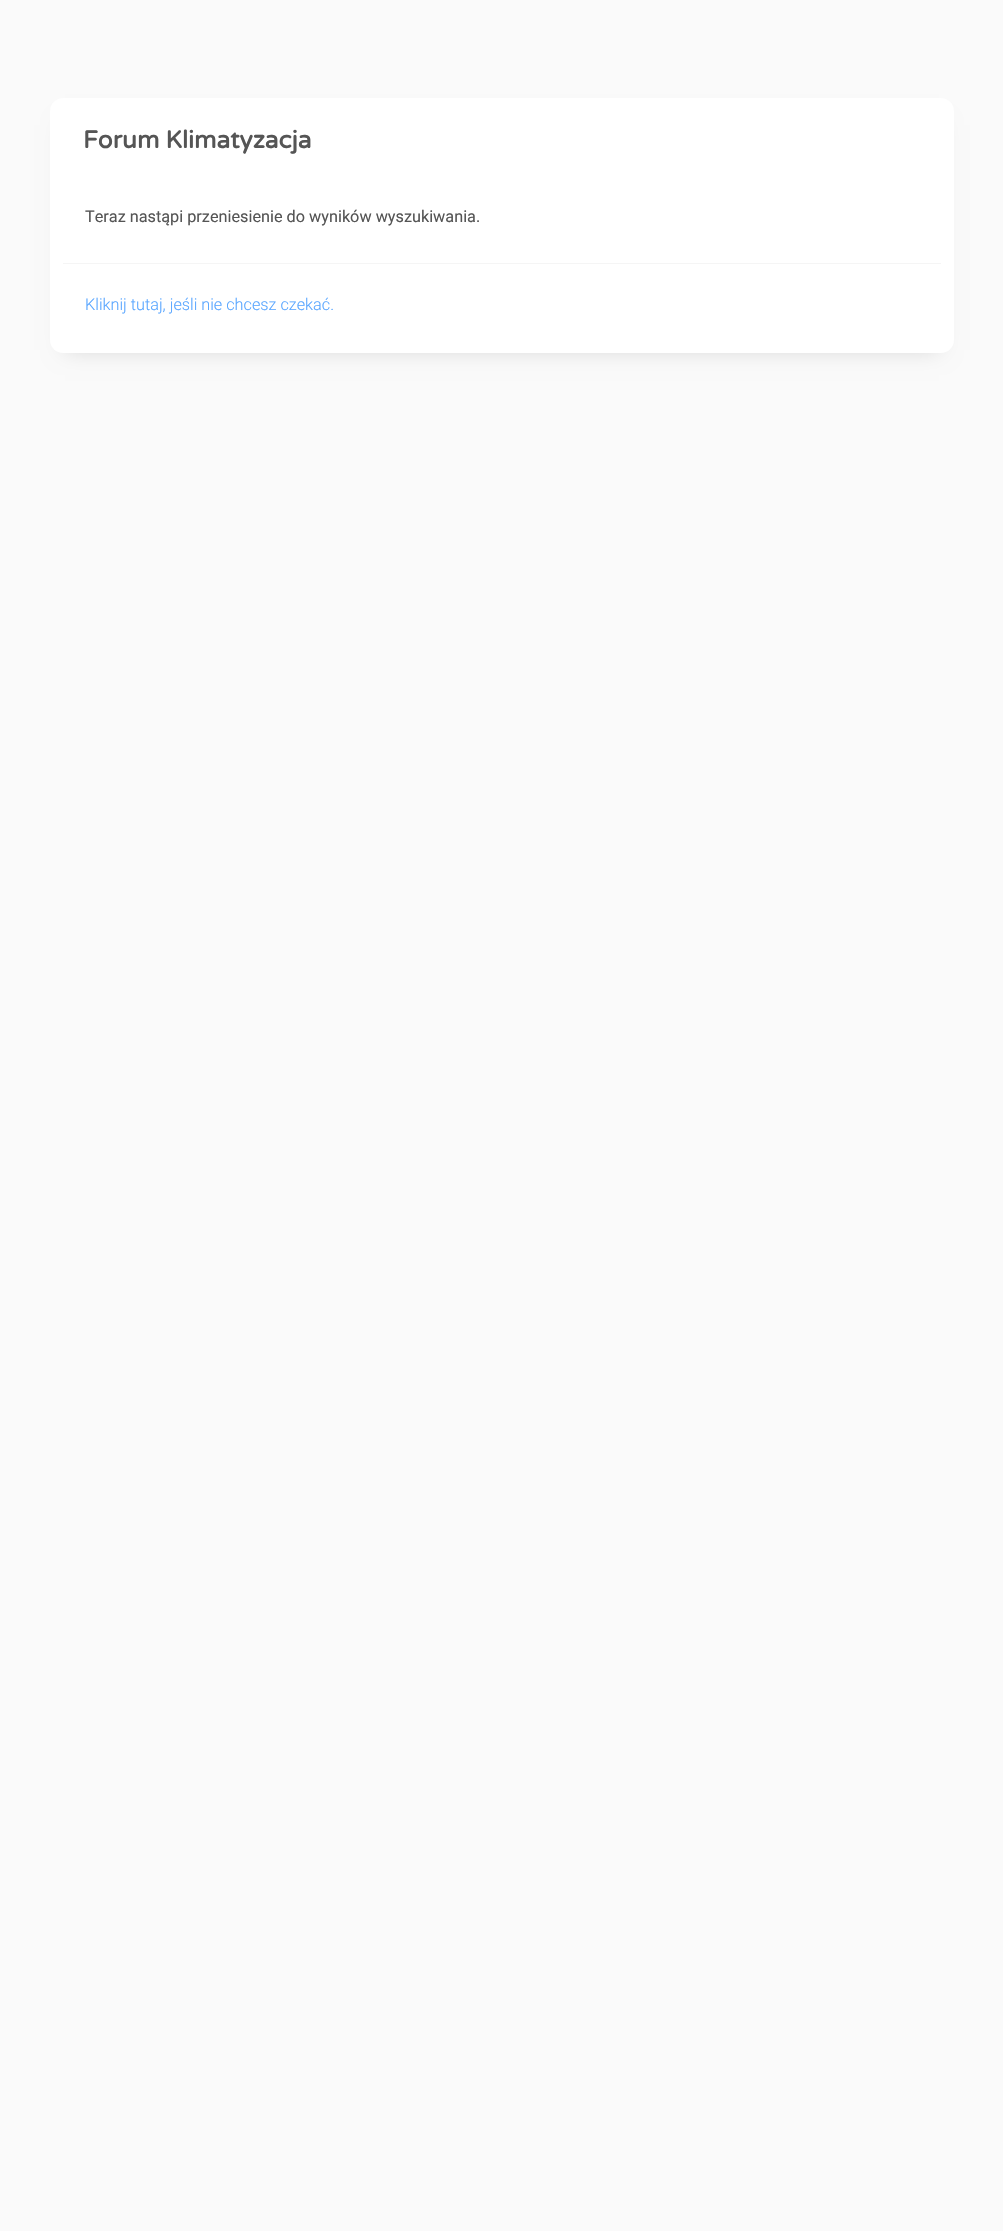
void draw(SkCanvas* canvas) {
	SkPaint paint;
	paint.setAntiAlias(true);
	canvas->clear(0xfffafafa);
	paint.setColor(0x26000000);
	paint.setMaskFilter(SkMaskFilter::MakeBlur(kNormal_SkBlurStyle, 10.5));
	canvas->drawRect(SkRect::MakeXYWH(65, 125, 874, 225), paint);
	paint.setMaskFilter(nullptr);
	paint.setColor(0xffffffff);
	canvas->drawRoundRect(SkRect::MakeXYWH(50, 98, 904, 255), 13, 13, paint);
	SkFont f1(fontMgr->matchFamilyStyle("Varela Round", SkFontStyle::Bold()), 24.4);
	f1.setSubpixel(true);
	paint.setColor(0xff555555);
	canvas->drawString("Forum Klimatyzacja", 83, 148, f1, paint);
	paint.setColor(0xfff5f5f5);
	canvas->drawRect(SkRect::MakeXYWH(63, 263, 878, 1), paint);
	SkFont f2(fontMgr->matchFamilyStyle("Roboto", SkFontStyle::Normal()), 16.25);
	f2.setSubpixel(true);
	paint.setColor(0xff555555);
	canvas->drawString("Teraz nastąpi przeniesienie do wyników wyszukiwania.", 85, 222, f2, paint);
	SkFont f3(fontMgr->matchFamilyStyle("Roboto", SkFontStyle(300, SkFontStyle::kNormal_Width, SkFontStyle::kUpright_Slant)), 16.25);
	f3.setSubpixel(true);
	paint.setColor(0xff59a6ff);
	canvas->drawString("Kliknij tutaj, jeśli nie chcesz czekać.", 85, 310, f3, paint);
}
